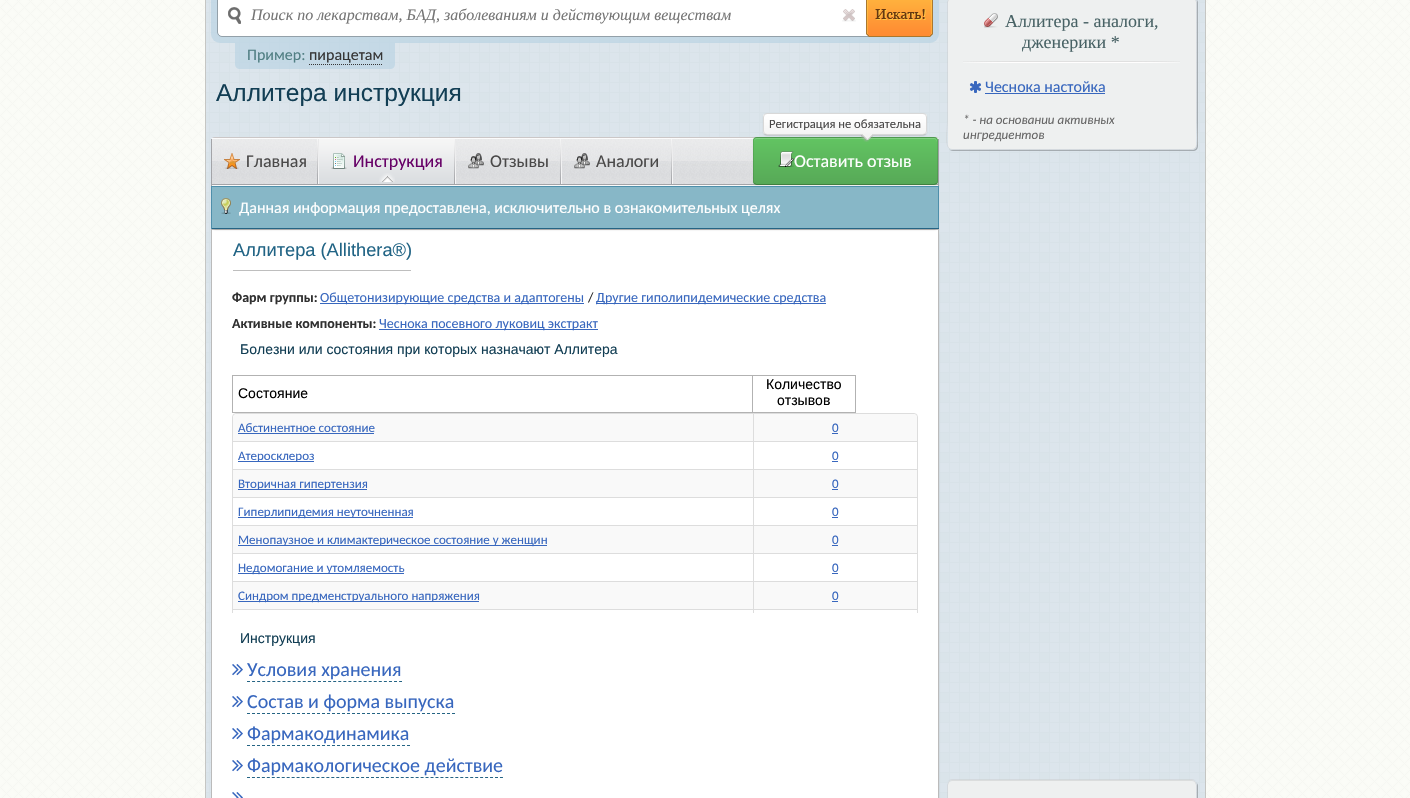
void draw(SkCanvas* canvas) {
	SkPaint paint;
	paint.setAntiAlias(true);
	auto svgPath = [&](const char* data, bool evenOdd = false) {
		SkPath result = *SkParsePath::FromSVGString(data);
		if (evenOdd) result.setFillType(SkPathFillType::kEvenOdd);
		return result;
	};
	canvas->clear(0xffffffff);
	canvas->drawImageRect(SkImages::DeferredFromEncodedData(SkData::MakeFromFileName("img1.png")), SkRect::MakeXYWH(0, 0, 1410, 798), SkSamplingOptions());
	canvas->drawImageRect(SkImages::DeferredFromEncodedData(SkData::MakeFromFileName("img2.png")), SkRect::MakeXYWH(206, 0, 999, 798), SkSamplingOptions());
	paint.setColor(0xffc5c6c3);
	canvas->drawRect(SkRect::MakeXYWH(1205, 0, 1, 798), paint);
	canvas->drawRect(SkRect::MakeXYWH(205, 0, 1, 798), paint);
	paint.setColor(0x8ab2cfe1);
	canvas->drawRoundRect(SkRect::MakeXYWH(211, -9, 728, 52), 9, 9, paint);
	paint.setColor(0xffffffff);
	canvas->drawRoundRect(SkRect::MakeXYWH(218, -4, 714, 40), 4, 4, paint);
	paint.setStroke(true);
	paint.setStrokeWidth(1);
	paint.setColor(0xff93a0a9);
	canvas->drawRoundRect(SkRect::MakeXYWH(217.5, -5.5, 715, 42), 4.5, 4.5, paint);
	canvas->drawImageRect(SkImages::DeferredFromEncodedData(SkData::MakeFromFileName("img3.png")), SkRect::MakeXYWH(228, 7, 13, 17), SkSamplingOptions());
	paint.setColor(0xffffffff);
	canvas->drawPath(svgPath("M930-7C931-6.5 931.5-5 931.5-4V31C931.5 32 931 33.5 930 34C929.5 35 928 35.5 927 35.5H223C222 35.5 220.5 35 220 34C219 33.5 218.5 32 218.5 31V-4C218.5-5 219-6.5 220-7"), paint);
	SkFont f1(fontMgr->matchFamilyStyle("Liberation Serif", SkFontStyle::Italic()), 16);
	f1.setSubpixel(true);
	paint.setStroke(false);
	paint.setColor(0xff757575);
	canvas->drawString("Поиск по лекарствам, БАД, заболеваниям и действующим веществам", 251, 20, f1, paint);
	canvas->drawImageRect(SkImages::DeferredFromEncodedData(SkData::MakeFromFileName("img4.png")), SkRect::MakeXYWH(842, 9, 14, 13), SkSamplingOptions());
	canvas->drawImageRect(SkImages::DeferredFromEncodedData(SkData::MakeFromFileName("img5.png")), SkRect::MakeXYWH(866, 0, 67, 37), SkSamplingOptions());
	paint.setColor(0x8ab2cfe1);
	canvas->drawPath(svgPath("M235 43H395V64C395 67 393 69 390 69H240C237 69 235 67 235 64Z"), paint);
	SkFont f2(fontMgr->matchFamilyStyle("Carlito", SkFontStyle::Normal()), 16);
	f2.setSubpixel(true);
	paint.setColor(0xff517f84);
	canvas->drawString("Пример:", 247, 60, f2, paint);
	paint.setColor(0xff363636);
	canvas->drawString("пирацетам", 309, 60, f2, paint);
	paint.setStroke(true);
	paint.setPathEffect(SkDashPathEffect::Make({{1, 1}}, 0));
	canvas->drawPath(svgPath("M309 64.5H383"), paint);
	paint.setPathEffect(nullptr);
	SkFont f3(fontMgr->matchFamilyStyle("Liberation Sans", SkFontStyle::Normal()), 24.5);
	f3.setSubpixel(true);
	paint.setStroke(false);
	paint.setColor(0xff123e54);
	canvas->drawString("Аллитера инструкция", 216, 101, f3, paint);
	canvas->drawImageRect(SkImages::DeferredFromEncodedData(SkData::MakeFromFileName("img6.png")), SkRect::MakeXYWH(211, 137, 728, 49), SkSamplingOptions());
	paint.setColor(0xffa3a4a8);
	canvas->drawRect(SkRect::MakeXYWH(938, 139, 1, 47), paint);
	canvas->drawRect(SkRect::MakeXYWH(211, 139, 1, 47), paint);
	canvas->drawImageRect(SkImages::DeferredFromEncodedData(SkData::MakeFromFileName("img7.png")), SkRect::MakeXYWH(317, 139, 2, 45), SkSamplingOptions());
	canvas->drawImageRect(SkImages::DeferredFromEncodedData(SkData::MakeFromFileName("img8.png")), SkRect::MakeXYWH(224, 153, 16, 16), SkSamplingOptions());
	SkFont f4(fontMgr->matchFamilyStyle("Carlito", SkFontStyle::Normal()), 18);
	f4.setSubpixel(true);
	paint.setColor(0xff4a4949);
	canvas->drawString("Главная", 246, 167, f4, paint);
	canvas->drawImageRect(SkImages::DeferredFromEncodedData(SkData::MakeFromFileName("img7.png")), SkRect::MakeXYWH(454, 139, 2, 45), SkSamplingOptions());
	canvas->drawImageRect(SkImages::DeferredFromEncodedData(SkData::MakeFromFileName("img9.png")), SkRect::MakeXYWH(319, 139, 135, 45), SkSamplingOptions());
	canvas->drawImageRect(SkImages::DeferredFromEncodedData(SkData::MakeFromFileName("img10.png")), SkRect::MakeXYWH(331, 153, 16, 16), SkSamplingOptions());
	paint.setColor(0xff660066);
	canvas->drawString("Инструкция", 353, 167, f4, paint);
	canvas->drawImageRect(SkImages::DeferredFromEncodedData(SkData::MakeFromFileName("img11.png")), SkRect::MakeXYWH(379, 173, 16, 9), SkSamplingOptions());
	canvas->drawImageRect(SkImages::DeferredFromEncodedData(SkData::MakeFromFileName("img7.png")), SkRect::MakeXYWH(560, 139, 2, 45), SkSamplingOptions());
	canvas->drawImageRect(SkImages::DeferredFromEncodedData(SkData::MakeFromFileName("img12.png")), SkRect::MakeXYWH(468, 153, 16, 16), SkSamplingOptions());
	paint.setColor(0xff4a4949);
	canvas->drawString("Отзывы", 490, 167, f4, paint);
	canvas->drawImageRect(SkImages::DeferredFromEncodedData(SkData::MakeFromFileName("img7.png")), SkRect::MakeXYWH(671, 139, 2, 45), SkSamplingOptions());
	canvas->drawImageRect(SkImages::DeferredFromEncodedData(SkData::MakeFromFileName("img13.png")), SkRect::MakeXYWH(574, 153, 16, 16), SkSamplingOptions());
	canvas->drawString("Аналоги", 596, 167, f4, paint);
	paint.setColor(0x0d000000);
	paint.setMaskFilter(SkMaskFilter::MakeBlur(kNormal_SkBlurStyle, 1));
	canvas->drawRoundRect(SkRect::MakeXYWH(753, 138, 185, 48), 4, 4, paint);
	paint.setMaskFilter(nullptr);
	paint.setColor(0xff57a957);
	canvas->drawRoundRect(SkRect::MakeXYWH(753, 137, 185, 48), 4, 4, paint);
	canvas->save();
	canvas->clipPath(svgPath("M757 137H934C936 137 938 139 938 141V181C938 183 936 185 934 185H757C755 185 753 183 753 181V141C753 139 755 137 757 137Z"), true);
	{
		const SkColor colors[] = {0xff62c462, 0xff57a957};
		const float stops[] = {0, 1};
		const SkPoint ends[] = {{846, 138}, {846, 184}};
		paint.setShader(SkGradientShader::MakeLinear(ends, colors, stops, 2, SkTileMode::kClamp));
		paint.setAlpha(255);
	}
	canvas->drawRect(SkRect::MakeXYWH(753, 138, 185, 46), paint);
	canvas->restore();
	paint.setShader(nullptr);
	paint.setColor(0xff81d081);
	canvas->drawPath(svgPath("M757 139H935L936 140L937 142C937 140 936 138 934 138H756C754 139 754 140 754 142C754 140 755 139 757 139Z"), paint);
	paint.setStroke(true);
	paint.setColor(0x40000000);
	canvas->drawPath(svgPath("M936.5 183.5L934 184.5H756.5L754.5 183.5"), paint);
	paint.setColor(0x1a000000);
	canvas->drawPath(svgPath("M754.5 183.5C754 183 753.5 182 753.5 181V141C753.5 140 754 139 754.5 138.5C755 138 756 137.5 757 137.5H934C935 137.5 936 138 936.5 138.5C937 139 937.5 140 937.5 141V181C937.5 182 937 183 936.5 183.5"), paint);
	paint.setStroke(false);
	paint.setColor(0xff888888);
	paint.setMaskFilter(SkMaskFilter::MakeBlur(kNormal_SkBlurStyle, 1));
	canvas->drawRoundRect(SkRect::MakeXYWH(764, 115, 162, 20), 3, 3, paint);
	paint.setMaskFilter(nullptr);
	canvas->drawImageRect(SkImages::DeferredFromEncodedData(SkData::MakeFromFileName("img14.png")), SkRect::MakeXYWH(763, 114, 164, 20), SkSamplingOptions());
	paint.setStroke(true);
	paint.setColor(0xffd8d8d8);
	canvas->drawRoundRect(SkRect::MakeXYWH(763.5, 113.5, 163, 21), 3.5, 3.5, paint);
	SkFont f5(fontMgr->matchFamilyStyle("Carlito", SkFontStyle::Normal()), 12.6);
	f5.setSubpixel(true);
	paint.setStroke(false);
	paint.setColor(0xff4a4949);
	canvas->drawString("Регистрация не обязательна", 769, 128, f5, paint);
	canvas->drawImageRect(SkImages::DeferredFromEncodedData(SkData::MakeFromFileName("img15.png")), SkRect::MakeXYWH(861, 134, 12, 8), SkSamplingOptions());
	canvas->drawImageRect(SkImages::DeferredFromEncodedData(SkData::MakeFromFileName("img16.png")), SkRect::MakeXYWH(778, 151, 16, 16), SkSamplingOptions());
	paint.setColor(0xffffffff);
	canvas->drawString("Оставить отзыв", 794, 167, f4, paint);
	paint.setColor(0xff888888);
	paint.setMaskFilter(SkMaskFilter::MakeBlur(kNormal_SkBlurStyle, 1));
	canvas->drawRect(SkRect::MakeXYWH(216, 234, 722, 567), paint);
	paint.setMaskFilter(nullptr);
	paint.setColor(0xffffffff);
	canvas->drawRect(SkRect::MakeXYWH(211.5, 229.5, 727, 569), paint);
	paint.setStroke(true);
	paint.setColor(0xffbbbbbb);
	canvas->drawRect(SkRect::MakeXYWH(211.5, 229.5, 727, 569), paint);
	paint.setStroke(false);
	paint.setColor(0xff888888);
	paint.setMaskFilter(SkMaskFilter::MakeBlur(kNormal_SkBlurStyle, 1));
	canvas->drawRect(SkRect::MakeXYWH(214, 192, 722, 37), paint);
	paint.setMaskFilter(nullptr);
	paint.setColor(0xff87b7c7);
	canvas->drawRect(SkRect::MakeXYWH(212, 187, 726, 41), paint);
	canvas->drawImageRect(SkImages::DeferredFromEncodedData(SkData::MakeFromFileName("img17.png")), SkRect::MakeXYWH(221, 198, 10, 16), SkSamplingOptions());
	paint.setColor(0xff4e8fab);
	canvas->drawRect(SkRect::MakeXYWH(211, 186, 728, 1), paint);
	canvas->drawRect(SkRect::MakeXYWH(938, 186, 1, 43), paint);
	paint.setColor(0xff256484);
	canvas->drawRect(SkRect::MakeXYWH(211, 228, 728, 1), paint);
	paint.setColor(0xff4e8fab);
	canvas->drawRect(SkRect::MakeXYWH(211, 186, 1, 43), paint);
	paint.setColor(0xffffffff);
	canvas->drawString("Данная информация предоставлена, исключительно в ознакомительных целях", 239, 213, f2, paint);
	paint.setColor(0xffbebebe);
	canvas->drawRect(SkRect::MakeXYWH(233, 270, 178, 1), paint);
	SkFont f6(fontMgr->matchFamilyStyle("Liberation Sans", SkFontStyle::Normal()), 18.25);
	f6.setSubpixel(true);
	paint.setColor(0xff216485);
	canvas->drawString("Аллитера (Allithera®)", 233, 256, f6, paint);
	SkFont f7(fontMgr->matchFamilyStyle("Carlito", SkFontStyle::Bold()), 14);
	f7.setSubpixel(true);
	paint.setColor(0xff303030);
	canvas->drawString("Фарм группы:", 232, 302, f7, paint);
	paint.setColor(0xff3867be);
	canvas->drawRect(SkRect::MakeXYWH(320, 303, 264, 1), paint);
	SkFont f8(fontMgr->matchFamilyStyle("Carlito", SkFontStyle::Normal()), 14);
	f8.setSubpixel(true);
	canvas->drawString("Общетонизирующие средства и адаптогены", 320, 302, f8, paint);
	paint.setColor(0xff303030);
	canvas->drawString("/", 588, 302, f8, paint);
	paint.setColor(0xff3867be);
	canvas->drawRect(SkRect::MakeXYWH(596, 303, 230, 1), paint);
	canvas->drawString("Другие гиполипидемические средства", 596, 302, f8, paint);
	paint.setColor(0xff303030);
	canvas->drawString("Активные компоненты:", 232, 328, f7, paint);
	paint.setColor(0xff3867be);
	canvas->drawRect(SkRect::MakeXYWH(379, 329, 219, 1), paint);
	canvas->drawString("Чеснока посевного луковиц экстракт", 379, 328, f8, paint);
	SkFont f9(fontMgr->matchFamilyStyle("Liberation Sans", SkFontStyle::Normal()), 14);
	f9.setSubpixel(true);
	paint.setColor(0xff123e54);
	canvas->drawString("Болезни или состояния при которых назначают Аллитера", 240, 354, f9, paint);
	paint.setStroke(true);
	paint.setColor(0xffb2b2b2);
	canvas->drawRect(SkRect::MakeXYWH(232.5, 375.5, 520, 37), paint);
	paint.setStroke(false);
	paint.setColor(0xff000000);
	canvas->drawString("Состояние", 238, 398, f9, paint);
	paint.setColor(0xffb2b2b2);
	canvas->drawRect(SkRect::MakeXYWH(753, 375, 103, 1), paint);
	canvas->drawRect(SkRect::MakeXYWH(855, 375, 1, 38), paint);
	canvas->drawRect(SkRect::MakeXYWH(753, 412, 103, 1), paint);
	paint.setColor(0xff000000);
	canvas->drawString("Количество", 766, 389, f9, paint);
	canvas->drawString("отзывов", 777, 405, f9, paint);
	paint.setColor(0xff123e54);
	canvas->drawString("Инструкция", 240, 643, f9, paint);
	canvas->save();
	canvas->clipRect(SkRect::MakeXYWH(232, 413, 686, 200));
	paint.setStroke(true);
	paint.setColor(0xffdddddd);
	canvas->drawRoundRect(SkRect::MakeXYWH(232.5, 413.5, 685, 224), 3.5, 3.5, paint);
	canvas->restore();
	paint.setStroke(false);
	paint.setColor(0xfff9f9f9);
	canvas->drawPath(svgPath("M237 414H753V441H233V418C233 416 235 414 237 414Z"), paint);
	SkFont f10(fontMgr->matchFamilyStyle("Carlito", SkFontStyle::Normal()), 13);
	f10.setSubpixel(true);
	paint.setColor(0xff3867be);
	canvas->drawString("Абстинентное состояние", 238, 432, f10, paint);
	canvas->drawRect(SkRect::MakeXYWH(238, 433, 136, 1), paint);
	paint.setColor(0xfff9f9f9);
	canvas->drawPath(svgPath("M754 414H913C915 414 917 416 917 418V441H754Z"), paint);
	paint.setColor(0xffdddddd);
	canvas->drawRect(SkRect::MakeXYWH(753, 414, 1, 27), paint);
	paint.setColor(0xff3867be);
	canvas->drawString("0", 832, 432, f10, paint);
	canvas->drawRect(SkRect::MakeXYWH(832, 433, 6, 1), paint);
	paint.setColor(0xffdddddd);
	canvas->drawRect(SkRect::MakeXYWH(233, 441, 684, 1), paint);
	paint.setColor(0xff3867be);
	canvas->drawRect(SkRect::MakeXYWH(238, 461, 76, 1), paint);
	canvas->drawString("Атеросклероз", 238, 460, f10, paint);
	paint.setColor(0xffdddddd);
	canvas->drawRect(SkRect::MakeXYWH(753, 441, 1, 28), paint);
	paint.setColor(0xff3867be);
	canvas->drawString("0", 832, 460, f10, paint);
	canvas->drawRect(SkRect::MakeXYWH(832, 461, 6, 1), paint);
	paint.setColor(0xfff9f9f9);
	canvas->drawRect(SkRect::MakeXYWH(233, 470, 520, 27), paint);
	paint.setColor(0xffdddddd);
	canvas->drawRect(SkRect::MakeXYWH(233, 469, 684, 1), paint);
	paint.setColor(0xff3867be);
	canvas->drawRect(SkRect::MakeXYWH(238, 489, 129, 1), paint);
	canvas->drawString("Вторичная гипертензия", 238, 488, f10, paint);
	paint.setColor(0xfff9f9f9);
	canvas->drawRect(SkRect::MakeXYWH(754, 470, 163, 27), paint);
	paint.setColor(0xffdddddd);
	canvas->drawRect(SkRect::MakeXYWH(753, 469, 1, 28), paint);
	paint.setColor(0xff3867be);
	canvas->drawString("0", 832, 488, f10, paint);
	canvas->drawRect(SkRect::MakeXYWH(832, 489, 6, 1), paint);
	paint.setColor(0xffdddddd);
	canvas->drawRect(SkRect::MakeXYWH(233, 497, 684, 1), paint);
	paint.setColor(0xff3867be);
	canvas->drawRect(SkRect::MakeXYWH(238, 517, 175, 1), paint);
	canvas->drawString("Гиперлипидемия неуточненная", 238, 516, f10, paint);
	paint.setColor(0xffdddddd);
	canvas->drawRect(SkRect::MakeXYWH(753, 497, 1, 28), paint);
	paint.setColor(0xff3867be);
	canvas->drawString("0", 832, 516, f10, paint);
	canvas->drawRect(SkRect::MakeXYWH(832, 517, 6, 1), paint);
	paint.setColor(0xfff9f9f9);
	canvas->drawRect(SkRect::MakeXYWH(233, 526, 520, 27), paint);
	paint.setColor(0xffdddddd);
	canvas->drawRect(SkRect::MakeXYWH(233, 525, 684, 1), paint);
	paint.setColor(0xff3867be);
	canvas->drawRect(SkRect::MakeXYWH(238, 545, 309, 1), paint);
	canvas->drawString("Менопаузное и климактерическое состояние у женщин", 238, 544, f10, paint);
	paint.setColor(0xfff9f9f9);
	canvas->drawRect(SkRect::MakeXYWH(754, 526, 163, 27), paint);
	paint.setColor(0xffdddddd);
	canvas->drawRect(SkRect::MakeXYWH(753, 525, 1, 28), paint);
	paint.setColor(0xff3867be);
	canvas->drawString("0", 832, 544, f10, paint);
	canvas->drawRect(SkRect::MakeXYWH(832, 545, 6, 1), paint);
	paint.setColor(0xffdddddd);
	canvas->drawRect(SkRect::MakeXYWH(233, 553, 684, 1), paint);
	paint.setColor(0xff3867be);
	canvas->drawRect(SkRect::MakeXYWH(238, 573, 166, 1), paint);
	canvas->drawString("Недомогание и утомляемость", 238, 572, f10, paint);
	paint.setColor(0xffdddddd);
	canvas->drawRect(SkRect::MakeXYWH(753, 553, 1, 28), paint);
	paint.setColor(0xff3867be);
	canvas->drawString("0", 832, 572, f10, paint);
	canvas->drawRect(SkRect::MakeXYWH(832, 573, 6, 1), paint);
	paint.setColor(0xfff9f9f9);
	canvas->drawRect(SkRect::MakeXYWH(233, 582, 520, 27), paint);
	paint.setColor(0xffdddddd);
	canvas->drawRect(SkRect::MakeXYWH(233, 581, 684, 1), paint);
	paint.setColor(0xff3867be);
	canvas->drawRect(SkRect::MakeXYWH(238, 601, 241, 1), paint);
	canvas->drawString("Синдром предменструального напряжения", 238, 600, f10, paint);
	paint.setColor(0xfff9f9f9);
	canvas->drawRect(SkRect::MakeXYWH(754, 582, 163, 27), paint);
	paint.setColor(0xffdddddd);
	canvas->drawRect(SkRect::MakeXYWH(753, 581, 1, 28), paint);
	paint.setColor(0xff3867be);
	canvas->drawString("0", 832, 600, f10, paint);
	canvas->drawRect(SkRect::MakeXYWH(832, 601, 6, 1), paint);
	paint.setColor(0xffdddddd);
	canvas->drawRect(SkRect::MakeXYWH(233, 609, 684, 1), paint);
	canvas->drawRect(SkRect::MakeXYWH(753, 609, 1, 4), paint);
	canvas->drawImageRect(SkImages::DeferredFromEncodedData(SkData::MakeFromFileName("img18.png")), SkRect::MakeXYWH(232, 664, 11, 12), SkSamplingOptions());
	SkFont f11(fontMgr->matchFamilyStyle("Carlito", SkFontStyle::Normal()), 20);
	f11.setSubpixel(true);
	paint.setColor(0xff3867be);
	canvas->drawString("Условия хранения", 247, 676, f11, paint);
	paint.setStroke(true);
	paint.setColor(0xff256484);
	paint.setPathEffect(SkDashPathEffect::Make({{3, 2.07f}}, 0));
	canvas->drawPath(svgPath("M247 681.5H402"), paint);
	paint.setPathEffect(nullptr);
	canvas->drawImageRect(SkImages::DeferredFromEncodedData(SkData::MakeFromFileName("img18.png")), SkRect::MakeXYWH(232, 696, 11, 12), SkSamplingOptions());
	paint.setStroke(false);
	paint.setColor(0xff3867be);
	canvas->drawString("Состав и форма выпуска", 247, 708, f11, paint);
	paint.setStroke(true);
	paint.setColor(0xff256484);
	paint.setPathEffect(SkDashPathEffect::Make({{3, 2}}, 0));
	canvas->drawPath(svgPath("M247 713.5H455"), paint);
	paint.setPathEffect(nullptr);
	canvas->drawImageRect(SkImages::DeferredFromEncodedData(SkData::MakeFromFileName("img18.png")), SkRect::MakeXYWH(232, 728, 11, 12), SkSamplingOptions());
	paint.setStroke(false);
	paint.setColor(0xff3867be);
	canvas->drawString("Фармакодинамика", 247, 740, f11, paint);
	paint.setStroke(true);
	paint.setColor(0xff256484);
	paint.setPathEffect(SkDashPathEffect::Make({{3, 2}}, 0));
	canvas->drawPath(svgPath("M247 745.5H410"), paint);
	paint.setPathEffect(nullptr);
	canvas->drawImageRect(SkImages::DeferredFromEncodedData(SkData::MakeFromFileName("img18.png")), SkRect::MakeXYWH(232, 760, 11, 12), SkSamplingOptions());
	paint.setStroke(false);
	paint.setColor(0xff3867be);
	canvas->drawString("Фармакологическое действие", 247, 772, f11, paint);
	paint.setStroke(true);
	paint.setColor(0xff256484);
	paint.setPathEffect(SkDashPathEffect::Make({{3, 1.96f}}, 0));
	canvas->drawPath(svgPath("M247 777.5H503"), paint);
	paint.setPathEffect(nullptr);
	canvas->drawImageRect(SkImages::DeferredFromEncodedData(SkData::MakeFromFileName("img19.png")), SkRect::MakeXYWH(232, 792, 11, 6), SkSamplingOptions());
	paint.setStroke(false);
	paint.setColor(0xffa5acb1);
	canvas->drawPath(svgPath("M949 149C950 150 951 151 953 151H1193C1196 151 1198 149 1198 146V3C1198 1 1197 0 1196-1C1197 0 1197 1 1197 2V145C1197 148 1195 150 1192 150H952C951 150 950 150 949 149Z"), paint);
	paint.setColor(0xffeef0f0);
	canvas->drawRoundRect(SkRect::MakeXYWH(948, -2, 248, 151), 4, 4, paint);
	paint.setStroke(true);
	paint.setColor(0x5cc5c5c5);
	canvas->drawPath(svgPath("M1195-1L1196.5 2V121C1196.5 130 1200.5 149.5 1192 149.5H952C943.5 149.5 947.5 130 947.5 121V2L949-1"), paint);
	canvas->drawImageRect(SkImages::DeferredFromEncodedData(SkData::MakeFromFileName("img20.png")), SkRect::MakeXYWH(963, 61, 217, 2), SkSamplingOptions());
	canvas->drawImageRect(SkImages::DeferredFromEncodedData(SkData::MakeFromFileName("img21.png")), SkRect::MakeXYWH(984, 13, 14, 15), SkSamplingOptions());
	SkFont f12(fontMgr->matchFamilyStyle("Liberation Serif", SkFontStyle::Normal()), 18);
	f12.setSubpixel(true);
	paint.setStroke(false);
	paint.setColor(0xff486265);
	canvas->drawString("Аллитера - аналоги,", 1005, 27, f12, paint);
	canvas->drawString("дженерики *", 1022, 48, f12, paint);
	canvas->drawImageRect(SkImages::DeferredFromEncodedData(SkData::MakeFromFileName("img22.png")), SkRect::MakeXYWH(969, 81, 12, 12), SkSamplingOptions());
	paint.setColor(0xff3867be);
	canvas->drawString("Чеснока настойка", 985, 92, f2, paint);
	canvas->drawRect(SkRect::MakeXYWH(985, 93, 120, 1), paint);
	SkFont f13(fontMgr->matchFamilyStyle("Carlito", SkFontStyle::Italic()), 13);
	f13.setSubpixel(true);
	paint.setColor(0xff666666);
	canvas->drawString("* - на основании активных", 963, 124, f13, paint);
	canvas->drawString("ингредиентов", 963, 139, f13, paint);
	paint.setColor(0x5cc5c5c5);
	canvas->drawPath(svgPath("M952 779C949 779 947 782 947 785C947 782 949 780 952 780H1192C1195 780 1197 782 1197 785C1197 782 1195 779 1192 779Z"), paint);
	paint.setColor(0xffa5acb1);
	canvas->drawPath(svgPath("M949 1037C950 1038 951 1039 953 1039H1193C1196 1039 1198 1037 1198 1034V786C1198 784 1197 783 1196 782C1197 783 1197 784 1197 785V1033C1197 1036 1195 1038 1192 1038H952C951 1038 950 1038 949 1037Z"), paint);
	paint.setColor(0xffeef0f0);
	canvas->drawRoundRect(SkRect::MakeXYWH(948, 781, 248, 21), 4, 4, paint);
	paint.setStroke(true);
	paint.setColor(0xffdbdddd);
	canvas->drawPath(svgPath("M949 782C949.5 781 951 780.5 952 780.5H1192C1193 780.5 1194.5 781 1195 782"), paint);
	paint.setColor(0x5cc5c5c5);
	canvas->drawPath(svgPath("M1195 782L1196.5 785V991.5C1196.5 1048.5 1208 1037.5 1152 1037.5H992C936 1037.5 947.5 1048.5 947.5 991.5V785L949 782"), paint);
}
